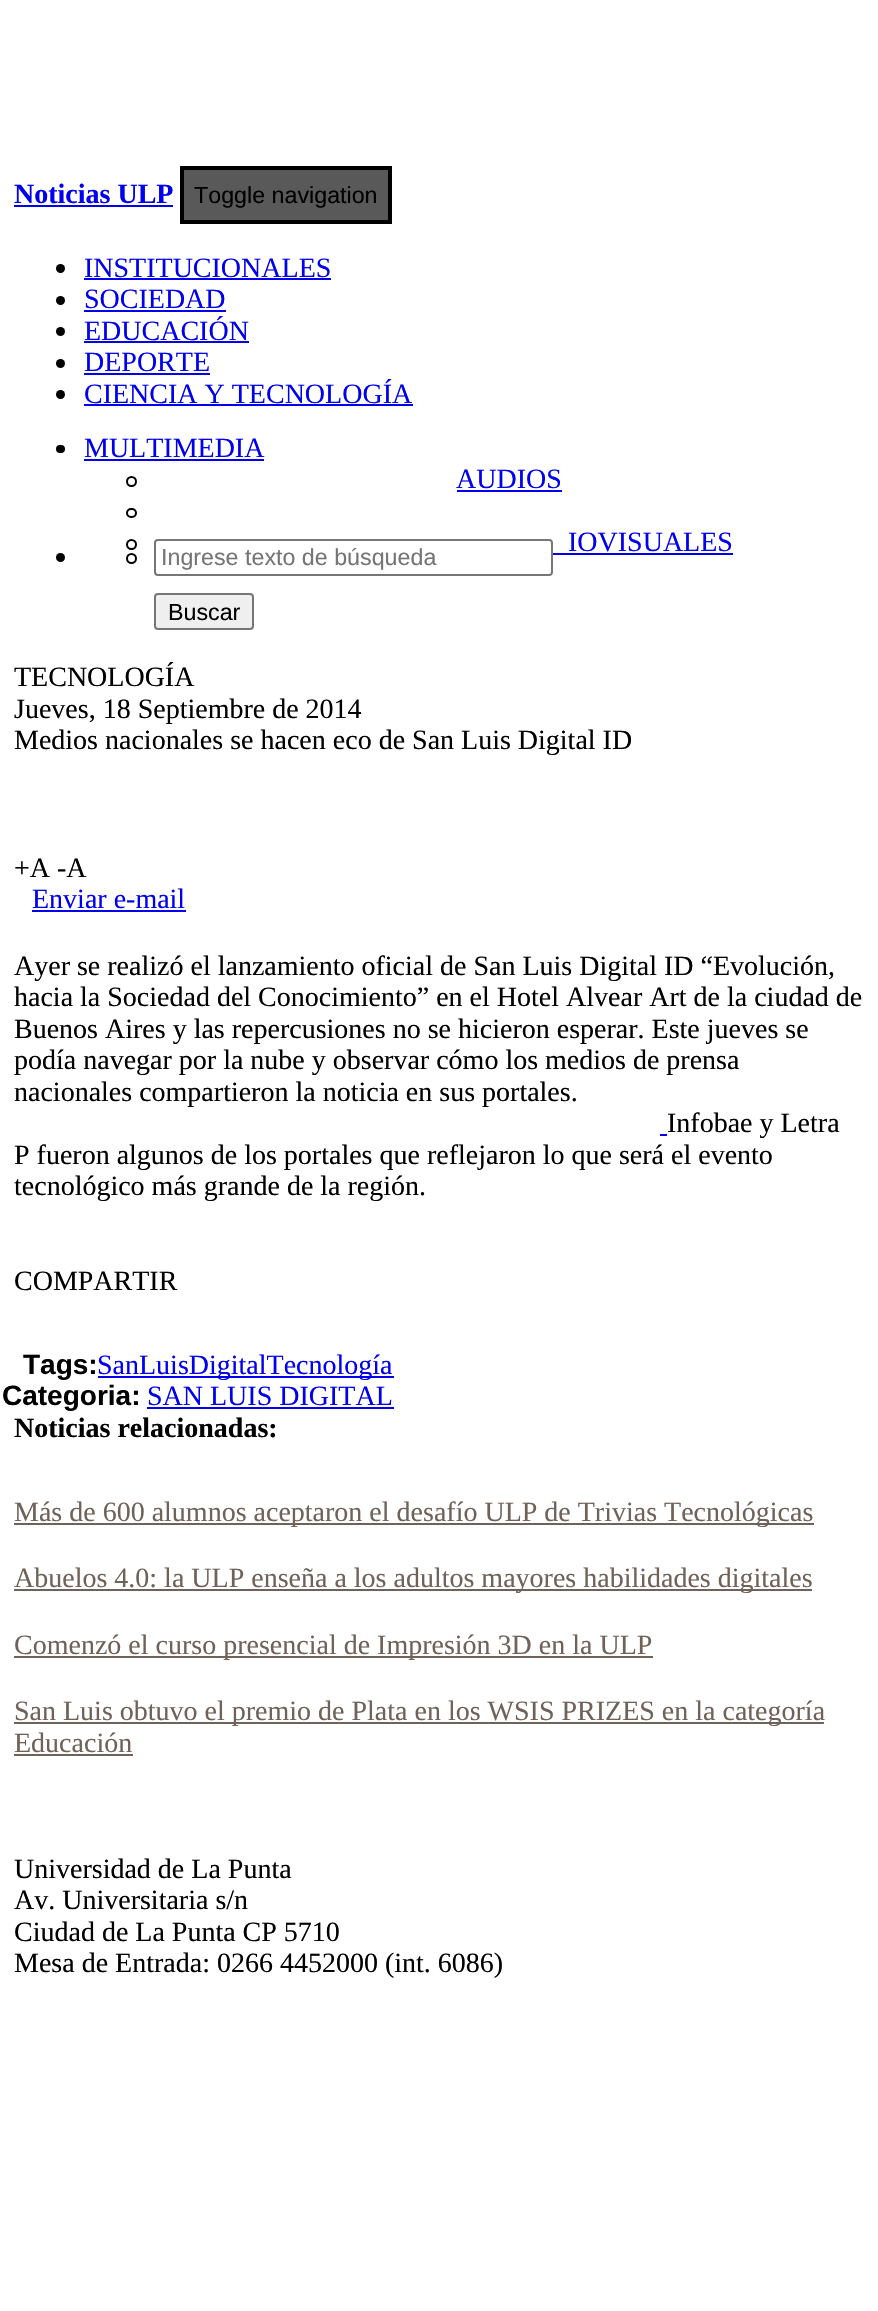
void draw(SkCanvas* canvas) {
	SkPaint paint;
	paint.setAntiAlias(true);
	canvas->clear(0xffffffff);
	SkFont f1(fontMgr->matchFamilyStyle("Liberation Serif", SkFontStyle::Bold()), 28);
	f1.setSubpixel(true);
	paint.setColor(0xff0000ee);
	canvas->drawString("Noticias ULP", 14, 203, f1, paint);
	canvas->drawRect(SkRect::MakeXYWH(14, 205, 159, 2), paint);
	paint.setColor(0xff5a5959);
	canvas->drawRect(SkRect::MakeXYWH(182, 168, 208, 54), paint);
	paint.setStroke(true);
	paint.setStrokeWidth(4);
	paint.setColor(0xff000000);
	canvas->drawRect(SkRect::MakeXYWH(182, 168, 208, 54), paint);
	SkFont f2(fontMgr->matchFamilyStyle("Liberation Sans", SkFontStyle::Normal()), 23.25);
	f2.setSubpixel(true);
	paint.setStroke(false);
	canvas->drawString("Toggle navigation", 194, 203, f2, paint);
	canvas->drawCircle(60.5, 268.5, 4.5, paint);
	SkFont f3(fontMgr->matchFamilyStyle("Liberation Serif", SkFontStyle::Normal()), 28);
	f3.setSubpixel(true);
	paint.setColor(0xff0000ee);
	canvas->drawString("INSTITUCIONALES", 84, 277, f3, paint);
	canvas->drawRect(SkRect::MakeXYWH(84, 278, 247, 2), paint);
	paint.setColor(0xff000000);
	canvas->drawCircle(60.5, 300.5, 4.5, paint);
	paint.setColor(0xff0000ee);
	canvas->drawString("SOCIEDAD", 84, 308, f3, paint);
	canvas->drawRect(SkRect::MakeXYWH(84, 310, 142, 2), paint);
	paint.setColor(0xff000000);
	canvas->drawCircle(60.5, 331.5, 4.5, paint);
	paint.setColor(0xff0000ee);
	canvas->drawString("EDUCACIÓN", 84, 340, f3, paint);
	canvas->drawRect(SkRect::MakeXYWH(84, 341, 165, 2), paint);
	paint.setColor(0xff000000);
	canvas->drawCircle(60.5, 363.5, 4.5, paint);
	paint.setColor(0xff0000ee);
	canvas->drawString("DEPORTE", 84, 371, f3, paint);
	canvas->drawRect(SkRect::MakeXYWH(84, 373, 126, 2), paint);
	paint.setColor(0xff000000);
	canvas->drawCircle(60.5, 394.5, 4.5, paint);
	paint.setColor(0xff0000ee);
	canvas->drawString("CIENCIA Y TECNOLOGÍA", 84, 403, f3, paint);
	canvas->drawRect(SkRect::MakeXYWH(84, 404, 329, 2), paint);
	paint.setColor(0xff000000);
	canvas->drawRoundRect(SkRect::MakeXYWH(56, 445, 9, 8), 4, 4, paint);
	paint.setColor(0xff0000ee);
	canvas->drawString("MULTIMEDIA", 84, 457, f3, paint);
	canvas->drawRect(SkRect::MakeXYWH(84, 459, 180, 2), paint);
	paint.setStroke(true);
	paint.setStrokeWidth(2);
	paint.setColor(0xff000000);
	canvas->drawCircle(131.5, 481.5, 4.5, paint);
	paint.setStroke(false);
	paint.setColor(0xff0000ee);
	canvas->drawString("AUDIOS", 456, 488, f3, paint);
	canvas->drawRect(SkRect::MakeXYWH(457, 490, 105, 2), paint);
	paint.setStroke(true);
	paint.setColor(0xff000000);
	canvas->drawRoundRect(SkRect::MakeXYWH(127, 509, 9, 8), 4, 4, paint);
	canvas->drawCircle(131.5, 544.5, 4.5, paint);
	paint.setStroke(false);
	paint.setColor(0xff0000ee);
	canvas->drawString("IOVISUALES", 568, 551, f3, paint);
	canvas->drawRect(SkRect::MakeXYWH(553, 553, 180, 2), paint);
	paint.setColor(0xff000000);
	canvas->drawCircle(60.5, 557.5, 4.5, paint);
	paint.setStroke(true);
	canvas->drawCircle(131.5, 558.5, 4.5, paint);
	paint.setColor(0xff767676);
	canvas->drawRoundRect(SkRect::MakeXYWH(155, 540, 397, 35), 3, 3, paint);
	paint.setStroke(false);
	paint.setColor(0xff757575);
	canvas->drawString("Ingrese texto de búsqueda", 161, 565, f2, paint);
	paint.setColor(0xffefefef);
	canvas->drawRoundRect(SkRect::MakeXYWH(155, 594, 98, 35), 3, 3, paint);
	paint.setStroke(true);
	paint.setColor(0xff767676);
	canvas->drawRoundRect(SkRect::MakeXYWH(155, 594, 98, 35), 3, 3, paint);
	paint.setStroke(false);
	paint.setColor(0xff000000);
	canvas->drawString("Buscar", 168, 620, f2, paint);
	canvas->drawString("TECNOLOGÍA", 14, 686, f3, paint);
	canvas->drawString("Jueves, 18 Septiembre de 2014", 14, 718, f3, paint);
	canvas->drawString("Medios nacionales se hacen eco de San Luis Digital ID", 14, 749, f3, paint);
	canvas->drawString("+A -A", 14, 877, f3, paint);
	paint.setColor(0xff0000ee);
	canvas->drawString("Enviar e-mail", 32, 908, f3, paint);
	canvas->drawRect(SkRect::MakeXYWH(32, 910, 154, 2), paint);
	paint.setColor(0xff000000);
	canvas->drawString("Ayer se realizó el lanzamiento oficial de San Luis Digital ID “Evolución,", 14, 975, f3, paint);
	canvas->drawString("hacia la Sociedad del Conocimiento” en el Hotel Alvear Art de la ciudad de", 14, 1006, f3, paint);
	canvas->drawString("Buenos Aires y las repercusiones no se hicieron esperar. Este jueves se", 14, 1038, f3, paint);
	canvas->drawString("podía navegar por la nube y observar cómo los medios de prensa", 14, 1069, f3, paint);
	canvas->drawString("nacionales compartieron la noticia en sus portales.", 14, 1101, f3, paint);
	paint.setColor(0xff0000ee);
	canvas->drawRect(SkRect::MakeXYWH(660, 1134, 7, 2), paint);
	paint.setColor(0xff000000);
	canvas->drawString("Infobae y Letra", 667, 1132, f3, paint);
	canvas->drawString("P fueron algunos de los portales que reflejaron lo que será el evento", 14, 1164, f3, paint);
	canvas->drawString("tecnológico más grande de la región.", 14, 1195, f3, paint);
	canvas->drawString("COMPARTIR", 14, 1290, f3, paint);
	SkFont f4(fontMgr->matchFamilyStyle("Liberation Sans", SkFontStyle::Bold()), 28);
	f4.setSubpixel(true);
	canvas->drawString("Tags:", 23, 1374, f4, paint);
	paint.setColor(0xff0000ee);
	canvas->drawRect(SkRect::MakeXYWH(98, 1376, 296, 2), paint);
	canvas->drawString("SanLuisDigitalTecnología", 97, 1374, f3, paint);
	paint.setColor(0xff000000);
	canvas->drawString("Categoria:", 2, 1405, f4, paint);
	paint.setColor(0xff0000ee);
	canvas->drawString("SAN LUIS DIGITAL", 147, 1405, f3, paint);
	canvas->drawRect(SkRect::MakeXYWH(147, 1407, 247, 2), paint);
	paint.setColor(0xff000000);
	canvas->drawString("Noticias relacionadas:", 14, 1437, f1, paint);
	paint.setColor(0xff706258);
	canvas->drawRect(SkRect::MakeXYWH(14, 1523, 800, 2), paint);
	canvas->drawString("Más de 600 alumnos aceptaron el desafío ULP de Trivias Tecnológicas", 14, 1521, f3, paint);
	canvas->drawRect(SkRect::MakeXYWH(14, 1589, 798, 2), paint);
	canvas->drawString("Abuelos 4.0: la ULP enseña a los adultos mayores habilidades digitales", 14, 1587, f3, paint);
	canvas->drawRect(SkRect::MakeXYWH(14, 1656, 639, 2), paint);
	canvas->drawString("Comenzó el curso presencial de Impresión 3D en la ULP", 14, 1654, f3, paint);
	canvas->drawRect(SkRect::MakeXYWH(14, 1722, 810, 2), paint);
	canvas->drawString("San Luis obtuvo el premio de Plata en los WSIS PRIZES en la categoría", 14, 1720, f3, paint);
	canvas->drawString("Educación", 14, 1752, f3, paint);
	canvas->drawRect(SkRect::MakeXYWH(14, 1754, 119, 2), paint);
	paint.setColor(0xff000000);
	canvas->drawString("Universidad de La Punta", 14, 1878, f3, paint);
	canvas->drawString("Av. Universitaria s/n", 14, 1909, f3, paint);
	canvas->drawString("Ciudad de La Punta CP 5710", 14, 1941, f3, paint);
	canvas->drawString("Mesa de Entrada: 0266 4452000 (int. 6086)", 14, 1972, f3, paint);
}
